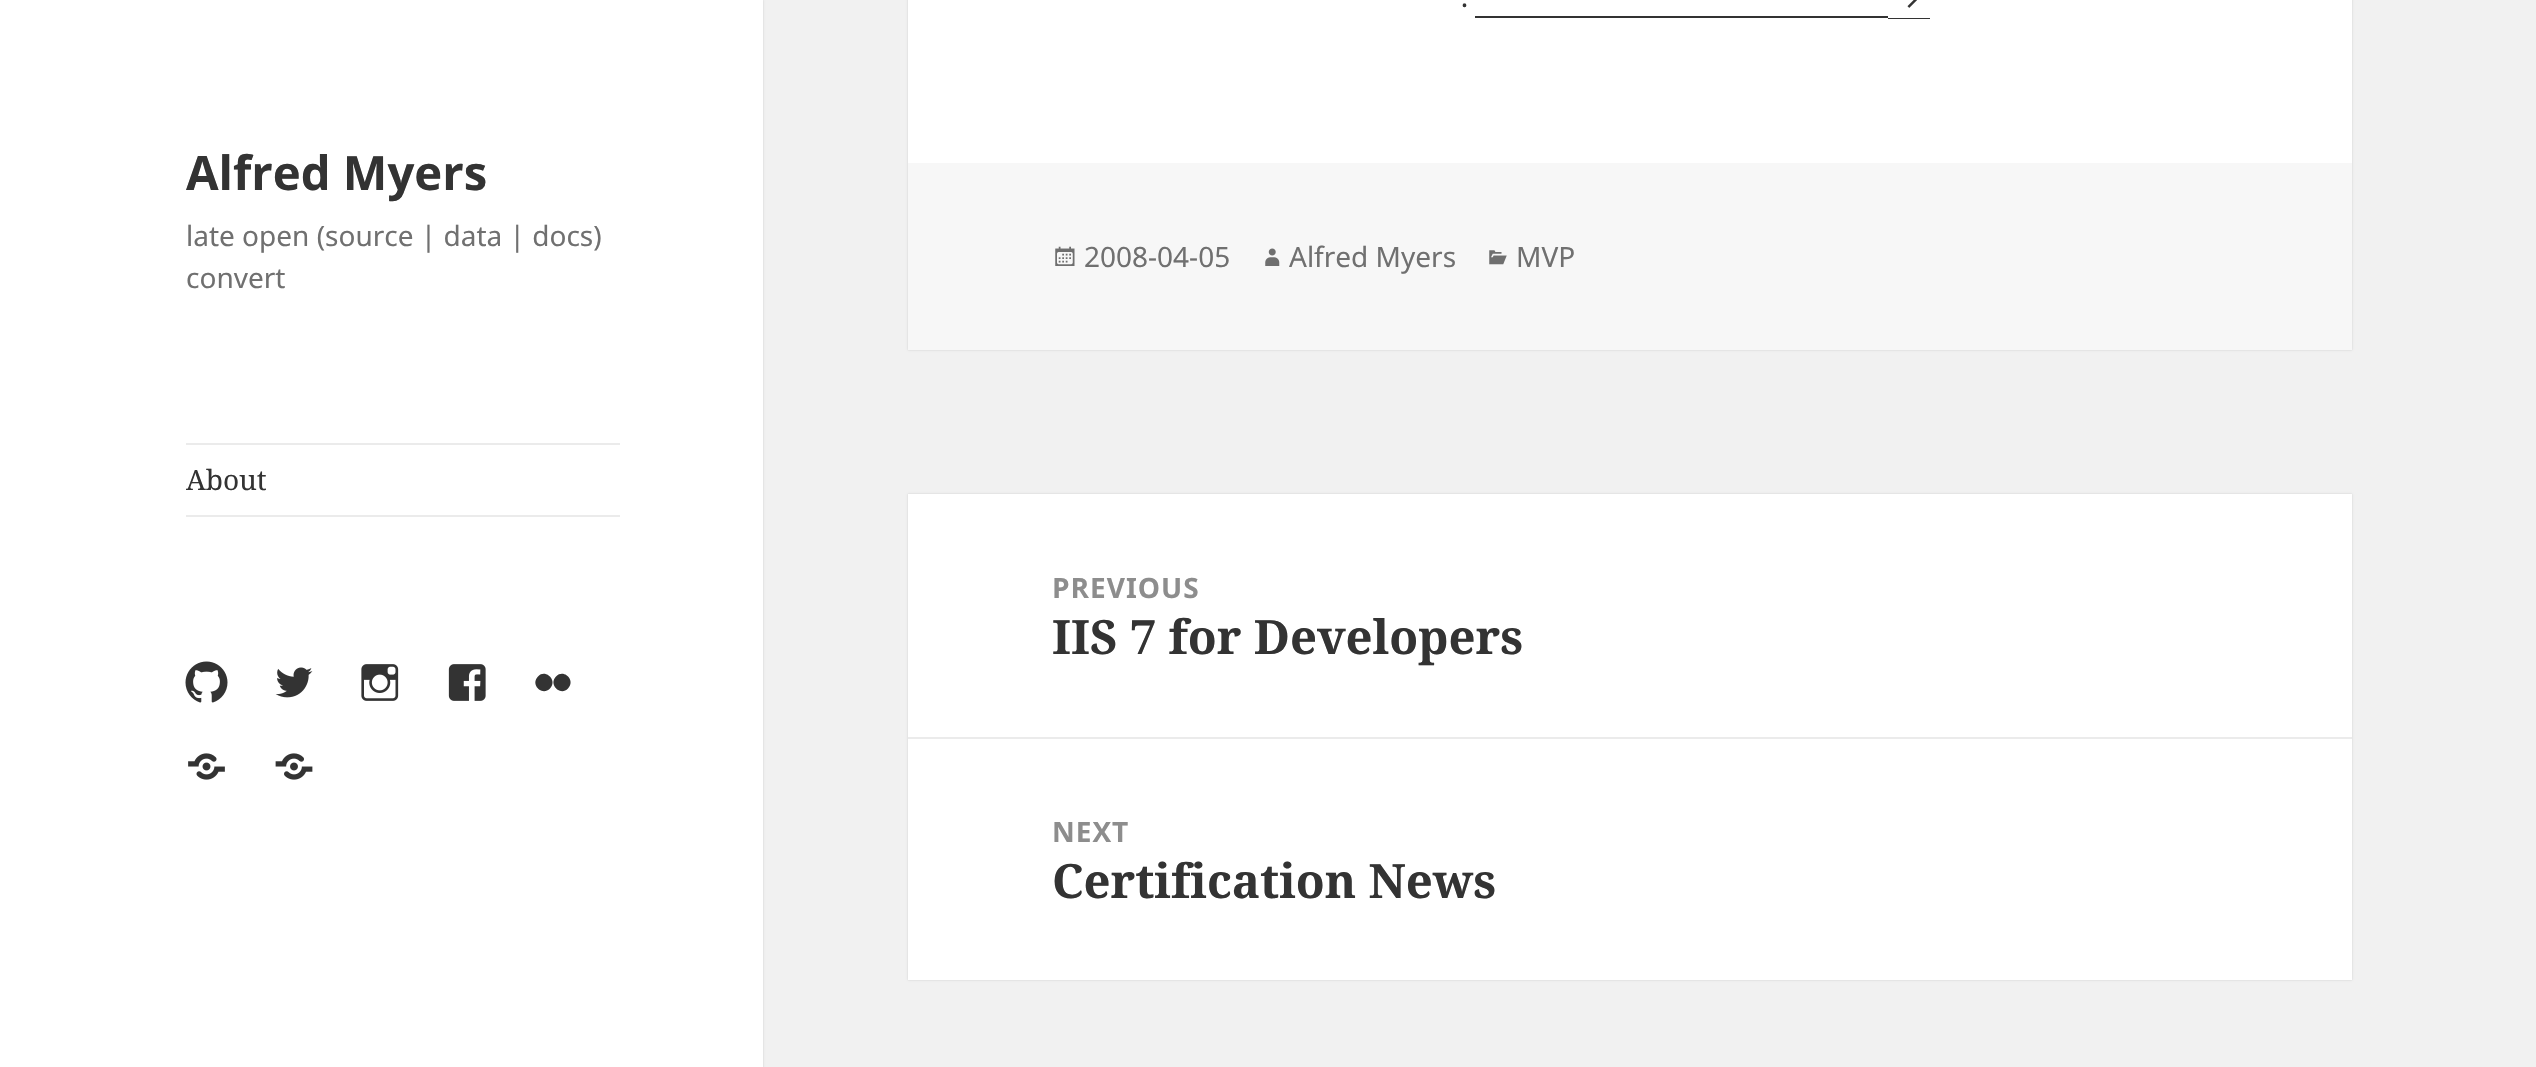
void draw(SkCanvas* canvas) {
	SkPaint paint;
	paint.setAntiAlias(true);
	auto spacedText = [&](const char* s, float x, float y, const SkFont& font, const SkPaint& ink, float letter, float word) {
		std::vector<SkGlyphID> glyphs(font.countText(s, strlen(s), SkTextEncoding::kUTF8));
		std::vector<float> xs(glyphs.size());
		font.textToGlyphs(s, strlen(s), SkTextEncoding::kUTF8, glyphs);
		font.getXPos(glyphs, xs, x);
		float extra = 0;
		for (size_t i = 0; i < glyphs.size(); i++) {
			xs[i] += extra;
			extra += letter + word * (glyphs[i] == font.unicharToGlyph(' '));
		}
		canvas->drawTextBlob(SkTextBlob::MakeFromPosHGlyphs(glyphs, xs, y, font), 0, 0, ink);
	};
	auto svgPath = [&](const char* data, bool evenOdd = false) {
		SkPath result = *SkParsePath::FromSVGString(data);
		if (evenOdd) result.setFillType(SkPathFillType::kEvenOdd);
		return result;
	};
	canvas->clear(0xfff1f1f1);
	paint.setColor(0x26000000);
	paint.setMaskFilter(SkMaskFilter::MakeBlur(kNormal_SkBlurStyle, 1));
	canvas->drawRect(SkRect::MakeXYWH(0, 0, 763, 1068), paint);
	paint.setMaskFilter(nullptr);
	paint.setColor(0xffffffff);
	canvas->drawRect(SkRect::MakeXYWH(0, 0, 763, 1067), paint);
	SkFont f1(fontMgr->matchFamilyStyle("Noto Sans", SkFontStyle::Bold()), 47.25);
	f1.setSubpixel(true);
	paint.setColor(0xff333333);
	canvas->drawString("Alfred Myers", 186, 190, f1, paint);
	SkFont f2(fontMgr->matchFamilyStyle("Noto Sans", SkFontStyle::Normal()), 28);
	f2.setSubpixel(true);
	paint.setColor(0xff707070);
	canvas->drawString("late open (source | data | docs)", 186, 246, f2, paint);
	canvas->drawString("convert", 186, 288, f2, paint);
	paint.setColor(0xffebebeb);
	canvas->drawRect(SkRect::MakeXYWH(186, 443, 434, 2), paint);
	canvas->drawRect(SkRect::MakeXYWH(186, 515, 434, 2), paint);
	SkFont f3(fontMgr->matchFamilyStyle("Noto Serif", SkFontStyle::Normal()), 28);
	f3.setSubpixel(true);
	paint.setColor(0xff333333);
	canvas->drawString("About", 186, 490, f3, paint);
	canvas->drawImageRect(SkImages::DeferredFromEncodedData(SkData::MakeFromFileName("img1.png")), SkRect::MakeXYWH(185, 661, 43, 42), SkSamplingOptions());
	canvas->drawImageRect(SkImages::DeferredFromEncodedData(SkData::MakeFromFileName("img2.png")), SkRect::MakeXYWH(275, 667, 38, 31), SkSamplingOptions());
	canvas->drawImageRect(SkImages::DeferredFromEncodedData(SkData::MakeFromFileName("img3.png")), SkRect::MakeXYWH(361, 664, 38, 37), SkSamplingOptions());
	canvas->drawImageRect(SkImages::DeferredFromEncodedData(SkData::MakeFromFileName("img4.png")), SkRect::MakeXYWH(448, 664, 38, 37), SkSamplingOptions());
	canvas->drawPath(svgPath("M556 676.5C564 668.5 576 680.5 568 688.5C560.5 696.5 548 684.5 556 676.5ZM538 676.5C545.5 668.5 558 680.5 550 688.5C542 696.5 530 684.5 538 676.5Z"), paint);
	canvas->drawImageRect(SkImages::DeferredFromEncodedData(SkData::MakeFromFileName("img5.png")), SkRect::MakeXYWH(188, 753, 37, 27), SkSamplingOptions());
	canvas->drawImageRect(SkImages::DeferredFromEncodedData(SkData::MakeFromFileName("img6.png")), SkRect::MakeXYWH(275, 753, 38, 27), SkSamplingOptions());
	paint.setColor(0x26000000);
	paint.setMaskFilter(SkMaskFilter::MakeBlur(kNormal_SkBlurStyle, 1));
	canvas->drawRect(SkRect::MakeXYWH(908, -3, 1444, 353), paint);
	paint.setMaskFilter(nullptr);
	paint.setColor(0xffffffff);
	canvas->drawRect(SkRect::MakeXYWH(908, 0, 1444, 163), paint);
	paint.setColor(0xff333333);
	canvas->drawString(".", 1461, 7, f3, paint);
	canvas->drawRect(SkRect::MakeXYWH(1475, 16, 413, 2), paint);
	canvas->drawRect(SkRect::MakeXYWH(1888, 18, 42, 1), paint);
	canvas->drawImageRect(SkImages::DeferredFromEncodedData(SkData::MakeFromFileName("img7.png")), SkRect::MakeXYWH(1907, 0, 10, 8), SkSamplingOptions());
	paint.setColor(0xfff7f7f7);
	canvas->drawRect(SkRect::MakeXYWH(908, 163, 1444, 187), paint);
	canvas->drawImageRect(SkImages::DeferredFromEncodedData(SkData::MakeFromFileName("img8.png")), SkRect::MakeXYWH(1055, 246, 20, 20), SkSamplingOptions());
	paint.setColor(0xff707070);
	canvas->drawString("2008-04-05", 1084, 267, f2, paint);
	canvas->drawImageRect(SkImages::DeferredFromEncodedData(SkData::MakeFromFileName("img9.png")), SkRect::MakeXYWH(1265, 248, 15, 18), SkSamplingOptions());
	canvas->drawString("Alfred Myers", 1289, 267, f2, paint);
	canvas->drawImageRect(SkImages::DeferredFromEncodedData(SkData::MakeFromFileName("img10.png")), SkRect::MakeXYWH(1489, 250, 18, 15), SkSamplingOptions());
	canvas->drawString("MVP", 1516, 267, f2, paint);
	paint.setColor(0x26000000);
	paint.setMaskFilter(SkMaskFilter::MakeBlur(kNormal_SkBlurStyle, 1));
	canvas->drawRect(SkRect::MakeXYWH(908, 494, 1444, 486), paint);
	paint.setMaskFilter(nullptr);
	paint.setColor(0xffffffff);
	canvas->drawRect(SkRect::MakeXYWH(908, 494, 1444, 486), paint);
	SkFont f4(fontMgr->matchFamilyStyle("Noto Sans", SkFontStyle::Bold()), 28);
	f4.setSubpixel(true);
	paint.setColor(0xff8d8d8d);
	spacedText("PREVIOUS", 1052, 598, f4, paint, 1, 0);
	SkFont f5(fontMgr->matchFamilyStyle("Noto Serif", SkFontStyle::Bold()), 47.25);
	f5.setSubpixel(true);
	paint.setColor(0xff333333);
	canvas->drawString("IIS 7 for Developers", 1052, 654, f5, paint);
	paint.setColor(0xffebebeb);
	canvas->drawRect(SkRect::MakeXYWH(908, 737, 1444, 2), paint);
	paint.setColor(0xff8d8d8d);
	spacedText("NEXT", 1052, 842, f4, paint, 1, 0);
	paint.setColor(0xff333333);
	canvas->drawString("Certification News", 1052, 898, f5, paint);
}
